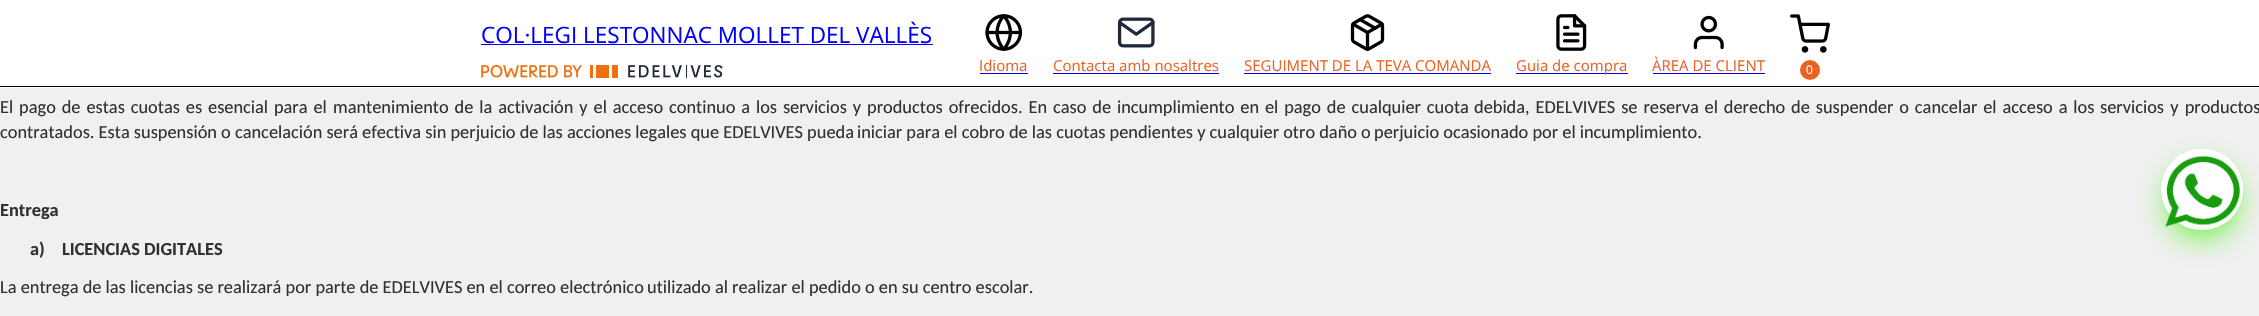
void draw(SkCanvas* canvas) {
	SkPaint paint;
	paint.setAntiAlias(true);
	auto spacedText = [&](const char* s, float x, float y, const SkFont& font, const SkPaint& ink, float letter, float word) {
		std::vector<SkGlyphID> glyphs(font.countText(s, strlen(s), SkTextEncoding::kUTF8));
		std::vector<float> xs(glyphs.size());
		font.textToGlyphs(s, strlen(s), SkTextEncoding::kUTF8, glyphs);
		font.getXPos(glyphs, xs, x);
		float extra = 0;
		for (size_t i = 0; i < glyphs.size(); i++) {
			xs[i] += extra;
			extra += letter + word * (glyphs[i] == font.unicharToGlyph(' '));
		}
		canvas->drawTextBlob(SkTextBlob::MakeFromPosHGlyphs(glyphs, xs, y, font), 0, 0, ink);
	};
	canvas->clear(0xfff0f0f0);
	paint.setColor(0xffffffff);
	canvas->drawRect(SkRect::MakeXYWH(0, 0, 2259, 88), paint);
	paint.setColor(0xff000000);
	canvas->drawRect(SkRect::MakeXYWH(0, 86, 2259, 1), paint);
	SkFont f1(fontMgr->matchFamilyStyle("Open Sans", SkFontStyle::Normal()), 22.5);
	f1.setSubpixel(true);
	paint.setColor(0xff0000ff);
	canvas->drawString("COL·LEGI LESTONNAC MOLLET DEL VALLÈS", 481, 43, f1, paint);
	canvas->drawRect(SkRect::MakeXYWH(481, 44, 452, 1), paint);
	canvas->drawImageRect(SkImages::DeferredFromEncodedData(SkData::MakeFromFileName("img1.png")), SkRect::MakeXYWH(481, 65, 242, 13), SkSamplingOptions());
	canvas->drawImageRect(SkImages::DeferredFromEncodedData(SkData::MakeFromFileName("img2.png")), SkRect::MakeXYWH(985, 14, 38, 37), SkSamplingOptions());
	SkFont f2(fontMgr->matchFamilyStyle("Open Sans", SkFontStyle::Normal()), 15);
	f2.setSubpixel(true);
	paint.setColor(0xffeb6225);
	canvas->drawString("Idioma", 979, 71, f2, paint);
	paint.setColor(0xff0000ff);
	canvas->drawRect(SkRect::MakeXYWH(980, 73, 48, 1), paint);
	canvas->drawImageRect(SkImages::DeferredFromEncodedData(SkData::MakeFromFileName("img3.png")), SkRect::MakeXYWH(1117, 17, 38, 31), SkSamplingOptions());
	paint.setColor(0xffeb6225);
	canvas->drawString("Contacta amb nosaltres", 1053, 71, f2, paint);
	paint.setColor(0xff0000ff);
	canvas->drawRect(SkRect::MakeXYWH(1053, 73, 166, 1), paint);
	canvas->drawImageRect(SkImages::DeferredFromEncodedData(SkData::MakeFromFileName("img4.png")), SkRect::MakeXYWH(1350, 14, 35, 37), SkSamplingOptions());
	paint.setColor(0xffeb6225);
	canvas->drawString("SEGUIMENT DE LA TEVA COMANDA", 1244, 71, f2, paint);
	paint.setColor(0xff0000ff);
	canvas->drawRect(SkRect::MakeXYWH(1244, 73, 247, 1), paint);
	canvas->drawImageRect(SkImages::DeferredFromEncodedData(SkData::MakeFromFileName("img5.png")), SkRect::MakeXYWH(1556, 14, 31, 37), SkSamplingOptions());
	canvas->drawRect(SkRect::MakeXYWH(1516, 73, 112, 1), paint);
	paint.setColor(0xffeb6225);
	canvas->drawString("Guia de compra", 1516, 71, f2, paint);
	canvas->drawImageRect(SkImages::DeferredFromEncodedData(SkData::MakeFromFileName("img6.png")), SkRect::MakeXYWH(1693, 15, 31, 35), SkSamplingOptions());
	canvas->drawString("ÀREA DE CLIENT", 1652, 71, f2, paint);
	paint.setColor(0xff0000ff);
	canvas->drawRect(SkRect::MakeXYWH(1653, 73, 112, 1), paint);
	canvas->drawImageRect(SkImages::DeferredFromEncodedData(SkData::MakeFromFileName("img7.png")), SkRect::MakeXYWH(1790, 14, 40, 39), SkSamplingOptions());
	paint.setColor(0xffeb6225);
	canvas->drawCircle(1810, 70, 10, paint);
	SkFont f3(fontMgr->matchFamilyStyle("Open Sans", SkFontStyle::Normal()), 12);
	f3.setSubpixel(true);
	paint.setColor(0xffffffff);
	canvas->drawString("0", 1806, 74, f3, paint);
	SkFont f4(fontMgr->matchFamilyStyle("Carlito", SkFontStyle::Normal()), 18.35);
	f4.setSubpixel(true);
	paint.setColor(0xff313131);
	spacedText("El pago de estas cuotas es esencial para el", 0, 113, f4, paint, 0, 1.75);
	spacedText("mantenimiento de la activación y el acceso continuo a los servicios y", 333, 113, f4, paint, 0, 1.75);
	spacedText("productos ofrecidos. En caso de incumplimiento en el pago de cualquier cuota", 867, 113, f4, paint, 0, 1.75);
	spacedText("debida, EDELVIVES se reserva el derecho de suspender o cancelar el acceso a los", 1474, 113, f4, paint, 0, 1.75);
	spacedText("servicios y productos", 2100, 113, f4, paint, 0, 2);
	canvas->drawString("contratados. Esta suspensión o cancelación será efectiva sin perjuicio de las acciones legales que EDELVIVES pueda", 0, 138, f4, paint);
	canvas->drawString("iniciar para el cobro de las cuotas pendientes y cualquier otro daño o", 857, 138, f4, paint);
	canvas->drawString("perjuicio ocasionado por el incumplimiento.", 1374, 138, f4, paint);
	SkFont f5(fontMgr->matchFamilyStyle("Carlito", SkFontStyle::Bold()), 18.35);
	f5.setSubpixel(true);
	canvas->drawString("Entrega", 0, 216, f5, paint);
	canvas->drawString("a)", 30, 255, f5, paint);
	canvas->drawString("LICENCIAS DIGITALES", 62, 255, f5, paint);
	canvas->drawString("La entrega de las licencias se realizará por parte de EDELVIVES en el correo electrónico", 0, 293, f4, paint);
	canvas->drawString("utilizado al realizar el pedido o en su centro escolar.", 647, 293, f4, paint);
	paint.setColor(0xff5cf02c);
	paint.setMaskFilter(SkMaskFilter::MakeBlur(kNormal_SkBlurStyle, 15.5));
	canvas->drawRoundRect(SkRect::MakeXYWH(2168, 168, 68, 68), 34, 34, paint);
	paint.setMaskFilter(nullptr);
	paint.setColor(0xffffffff);
	canvas->drawRoundRect(SkRect::MakeXYWH(2161, 149, 82, 81), 40.5, 40.5, paint);
	canvas->drawImageRect(SkImages::DeferredFromEncodedData(SkData::MakeFromFileName("img8.png")), SkRect::MakeXYWH(2165, 155, 75, 72), SkSamplingOptions());
}
